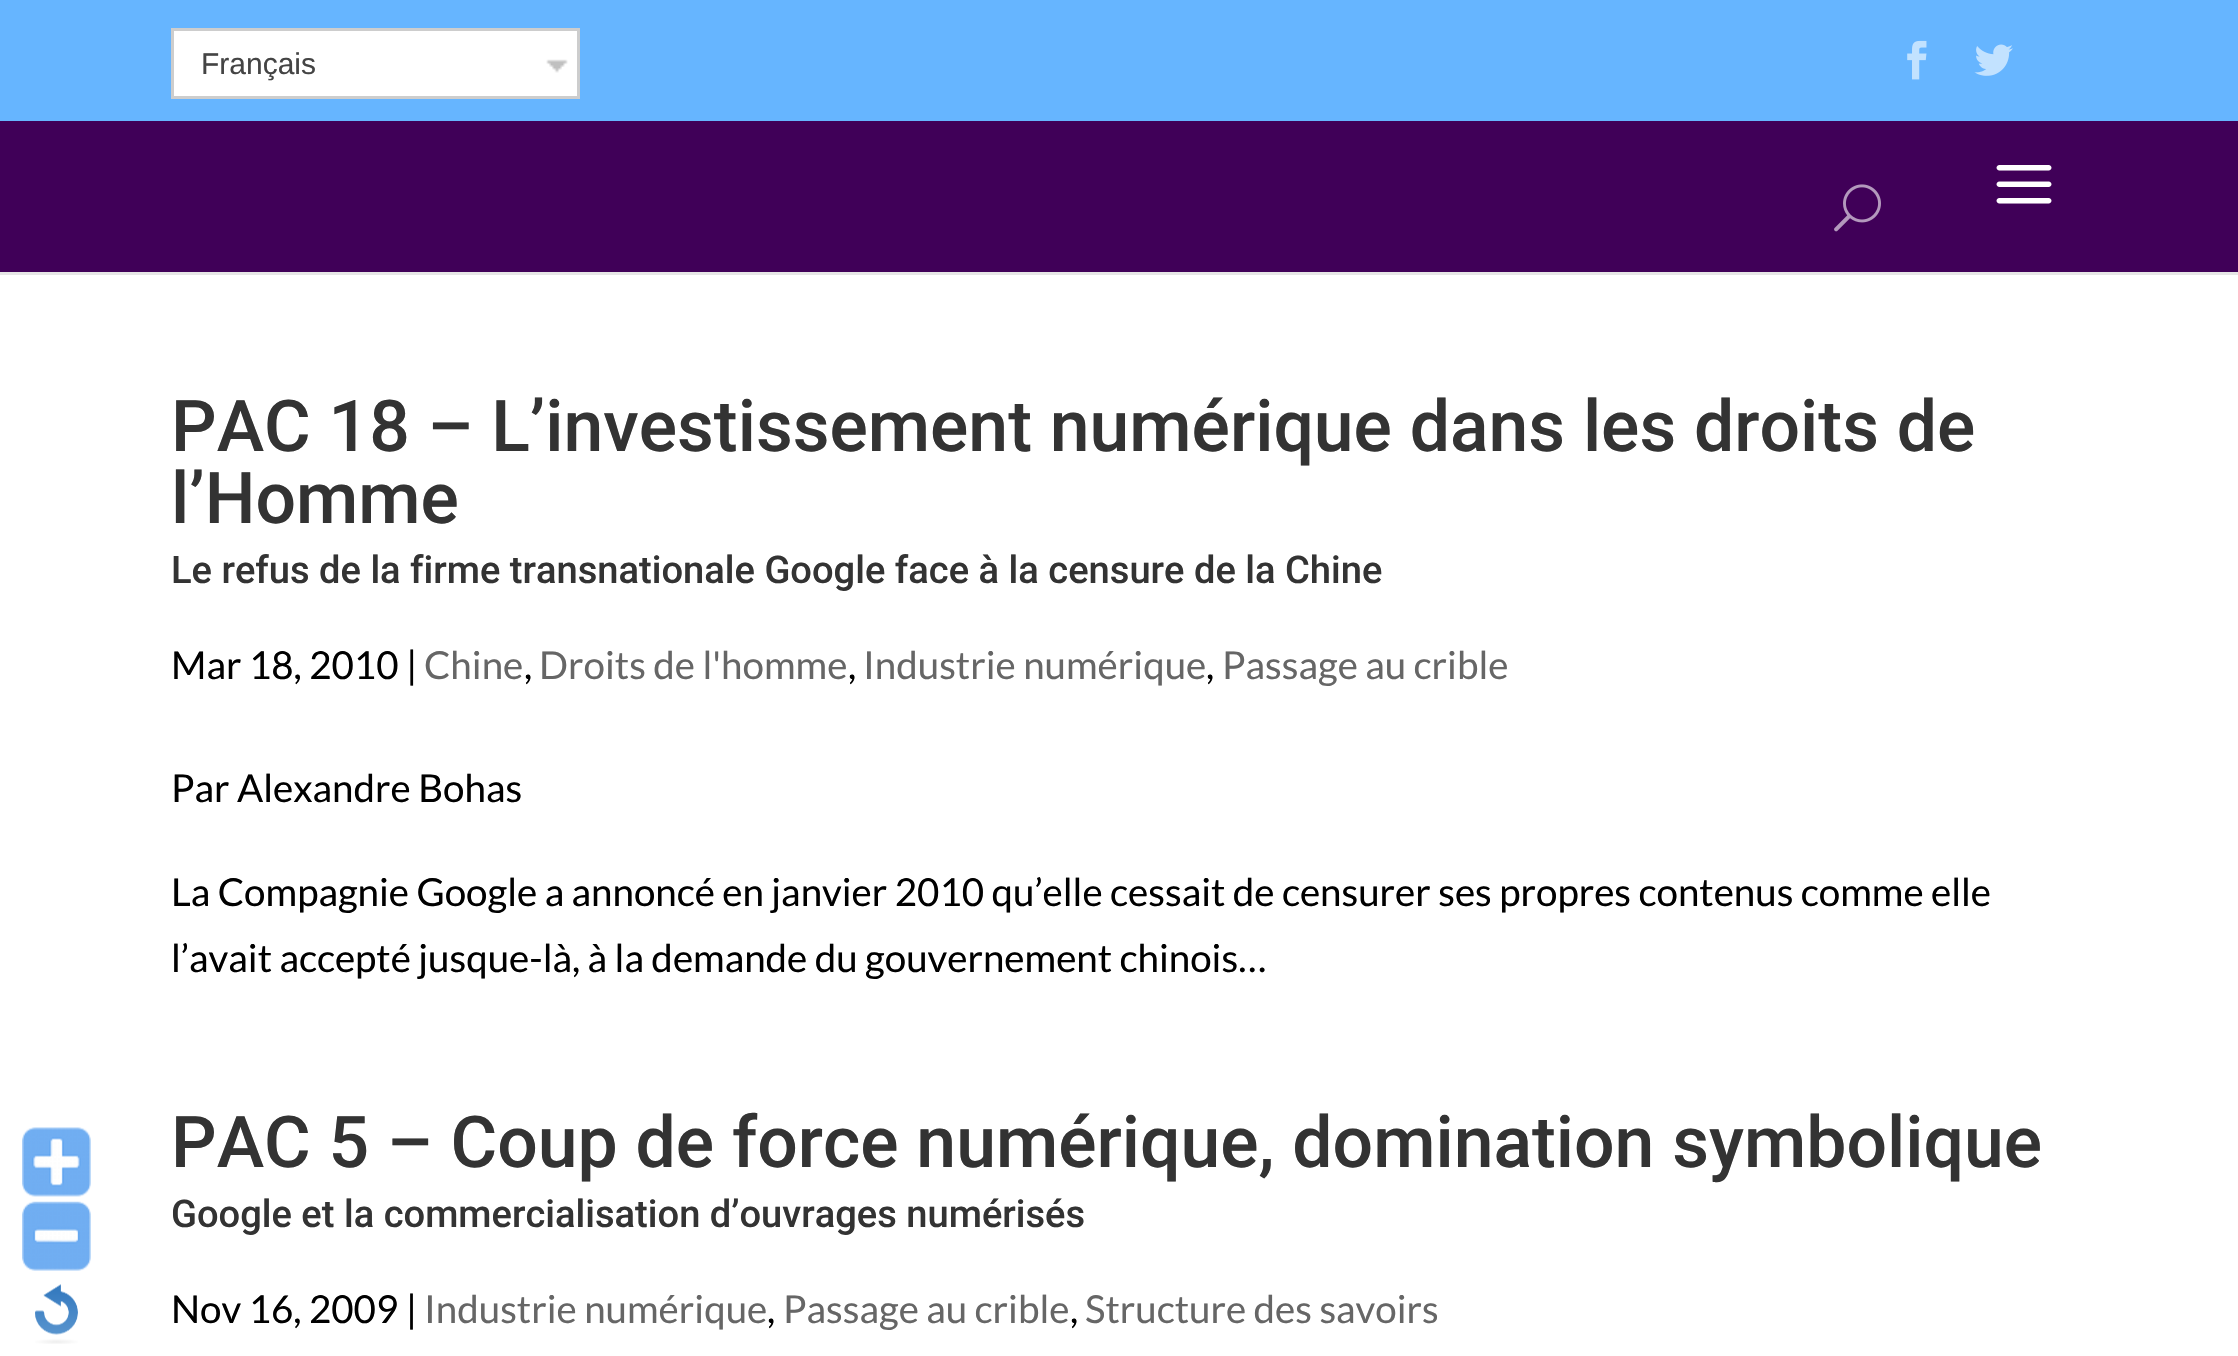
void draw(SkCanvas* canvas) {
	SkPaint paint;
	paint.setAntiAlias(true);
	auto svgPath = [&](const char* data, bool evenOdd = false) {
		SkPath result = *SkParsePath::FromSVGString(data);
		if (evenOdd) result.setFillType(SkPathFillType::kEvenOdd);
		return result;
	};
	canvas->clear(0xffffffff);
	canvas->drawImageRect(SkImages::DeferredFromEncodedData(SkData::MakeFromFileName("img1.png")), SkRect::MakeXYWH(22, 1127, 69, 70), SkSamplingOptions());
	canvas->drawImageRect(SkImages::DeferredFromEncodedData(SkData::MakeFromFileName("img2.png")), SkRect::MakeXYWH(22, 1201, 69, 70), SkSamplingOptions());
	canvas->drawImageRect(SkImages::DeferredFromEncodedData(SkData::MakeFromFileName("img3.png")), SkRect::MakeXYWH(35, 1284, 43, 60), SkSamplingOptions());
	paint.setColor(0xff66b5ff);
	canvas->drawRect(SkRect::MakeXYWH(0, 0, 2238, 121), paint);
	paint.setColor(0xffffffff);
	canvas->drawRect(SkRect::MakeXYWH(174, 31, 403, 65), paint);
	canvas->drawImageRect(SkImages::DeferredFromEncodedData(SkData::MakeFromFileName("img4.png")), SkRect::MakeXYWH(546, 59, 22, 14), SkSamplingOptions());
	paint.setStroke(true);
	paint.setStrokeWidth(3);
	paint.setColor(0xffcdcdcd);
	canvas->drawRect(SkRect::MakeXYWH(172.5, 29.5, 406, 68), paint);
	SkFont f1(fontMgr->matchFamilyStyle("Liberation Sans", SkFontStyle::Normal()), 30);
	f1.setSubpixel(true);
	paint.setStroke(false);
	paint.setColor(0xff444444);
	canvas->drawString("Français", 201, 74, f1, paint);
	canvas->drawImageRect(SkImages::DeferredFromEncodedData(SkData::MakeFromFileName("img5.png")), SkRect::MakeXYWH(1907, 40, 20, 40), SkSamplingOptions());
	canvas->drawImageRect(SkImages::DeferredFromEncodedData(SkData::MakeFromFileName("img6.png")), SkRect::MakeXYWH(1974, 44, 39, 32), SkSamplingOptions());
	paint.setColor(0xffe6e6e6);
	canvas->drawPath(svgPath("M0 272V275H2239V124H2238V272Z"), paint);
	paint.setColor(0xff400058);
	canvas->drawRect(SkRect::MakeXYWH(0, 121, 2238, 151), paint);
	canvas->drawImageRect(SkImages::DeferredFromEncodedData(SkData::MakeFromFileName("img7.png")), SkRect::MakeXYWH(1834, 184, 47, 48), SkSamplingOptions());
	canvas->drawImageRect(SkImages::DeferredFromEncodedData(SkData::MakeFromFileName("img8.png")), SkRect::MakeXYWH(1996, 165, 56, 39), SkSamplingOptions());
	SkFont f2(fontMgr->matchFamilyStyle("Roboto", SkFontStyle(500, SkFontStyle::kNormal_Width, SkFontStyle::kUpright_Slant)), 71.5);
	f2.setSubpixel(true);
	paint.setColor(0xff333333);
	canvas->drawString("PAC 18 – L’investissement numérique dans les droits de", 171, 451, f2, paint);
	canvas->drawString("l’Homme", 171, 523, f2, paint);
	SkFont f3(fontMgr->matchFamilyStyle("Roboto", SkFontStyle(500, SkFontStyle::kNormal_Width, SkFontStyle::kUpright_Slant)), 38.1);
	f3.setSubpixel(true);
	canvas->drawString("Le refus de la firme transnationale Google face à la censure de la Chine", 171, 583, f3, paint);
	SkFont f4(fontMgr->matchFamilyStyle("Lato", SkFontStyle::Normal()), 38.5);
	f4.setSubpixel(true);
	paint.setColor(0xff000000);
	canvas->drawString("Mar 18, 2010 |", 171, 679, f4, paint);
	paint.setColor(0xff666666);
	canvas->drawString("Chine", 424, 679, f4, paint);
	paint.setColor(0xff000000);
	canvas->drawString(",", 524, 679, f4, paint);
	paint.setColor(0xff666666);
	canvas->drawString("Droits de l'homme", 539, 679, f4, paint);
	paint.setColor(0xff000000);
	canvas->drawString(",", 848, 679, f4, paint);
	paint.setColor(0xff666666);
	canvas->drawString("Industrie numérique", 863, 679, f4, paint);
	paint.setColor(0xff000000);
	canvas->drawString(",", 1206, 679, f4, paint);
	paint.setColor(0xff666666);
	canvas->drawString("Passage au crible", 1222, 679, f4, paint);
	paint.setColor(0xff000000);
	canvas->drawString("Par Alexandre Bohas", 171, 802, f4, paint);
	canvas->drawString("La Compagnie Google a annoncé en janvier 2010 qu’elle cessait de censurer ses propres contenus comme elle", 171, 906, f4, paint);
	canvas->drawString("l’avait accepté jusque-là, à la demande du gouvernement chinois…", 171, 972, f4, paint);
	paint.setColor(0xff333333);
	canvas->drawString("PAC 5 – Coup de force numérique, domination symbolique", 171, 1167, f2, paint);
	canvas->drawString("Google et la commercialisation d’ouvrages numérisés", 171, 1227, f3, paint);
	paint.setColor(0xff000000);
	canvas->drawString("Nov 16, 2009 |", 171, 1323, f4, paint);
	paint.setColor(0xff666666);
	canvas->drawString("Industrie numérique", 424, 1323, f4, paint);
	paint.setColor(0xff000000);
	canvas->drawString(",", 767, 1323, f4, paint);
	paint.setColor(0xff666666);
	canvas->drawString("Passage au crible", 783, 1323, f4, paint);
	paint.setColor(0xff000000);
	canvas->drawString(",", 1070, 1323, f4, paint);
	paint.setColor(0xff666666);
	canvas->drawString("Structure des savoirs", 1085, 1323, f4, paint);
}
